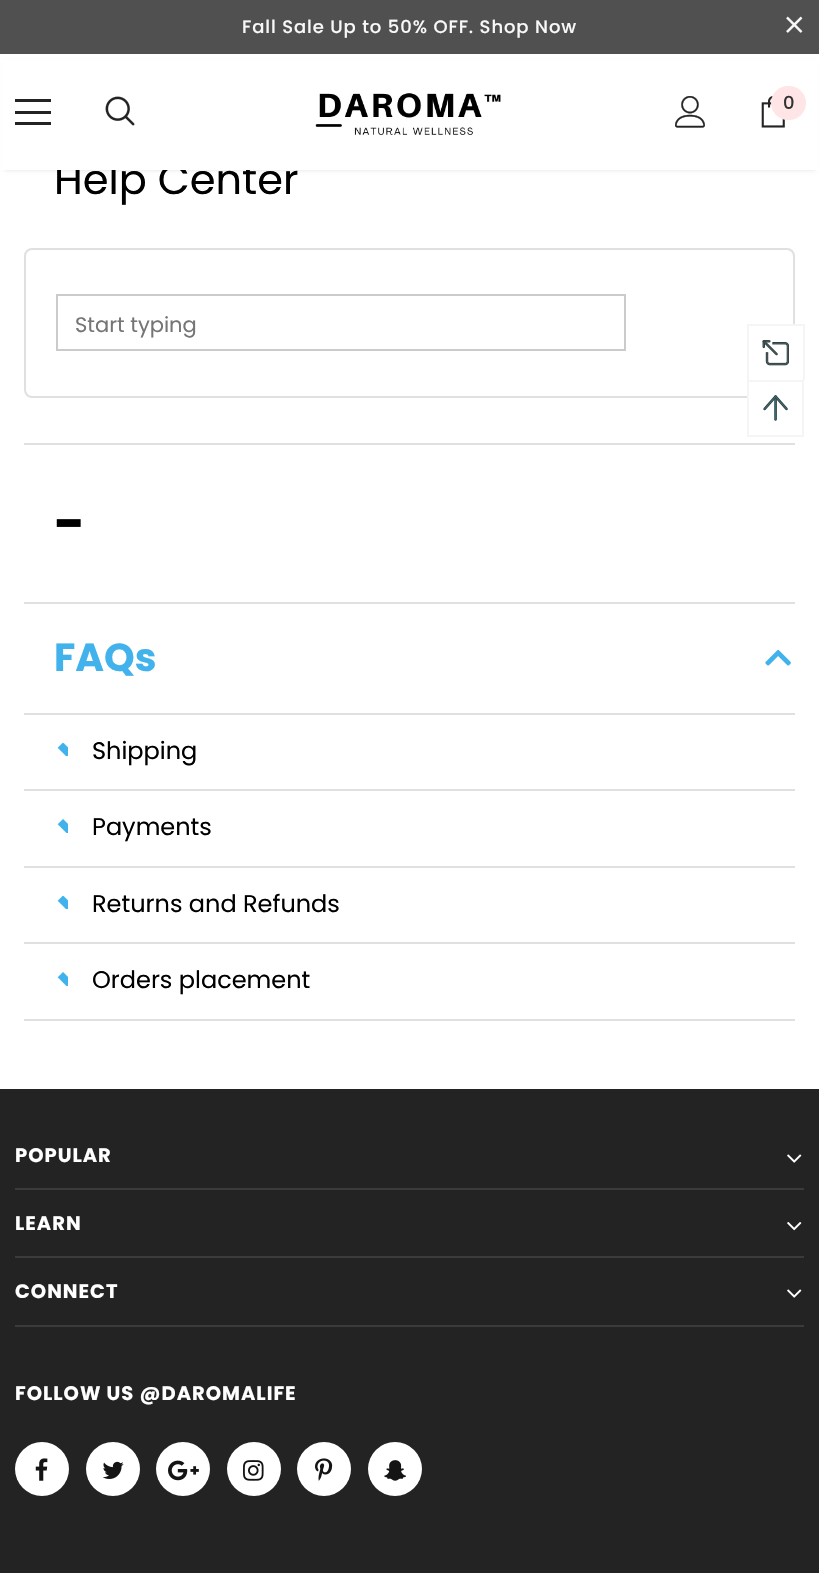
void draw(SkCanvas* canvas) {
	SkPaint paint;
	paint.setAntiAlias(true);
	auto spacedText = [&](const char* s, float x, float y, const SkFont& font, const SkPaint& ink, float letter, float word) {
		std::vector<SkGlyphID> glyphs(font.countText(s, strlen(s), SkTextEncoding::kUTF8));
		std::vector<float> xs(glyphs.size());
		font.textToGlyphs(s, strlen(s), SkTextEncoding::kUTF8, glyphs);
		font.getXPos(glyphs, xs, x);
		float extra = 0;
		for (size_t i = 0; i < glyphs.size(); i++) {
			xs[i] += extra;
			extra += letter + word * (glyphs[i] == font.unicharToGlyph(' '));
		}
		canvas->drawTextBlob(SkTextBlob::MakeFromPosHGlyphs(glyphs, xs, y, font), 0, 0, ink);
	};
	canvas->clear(0xffffffff);
	paint.setColor(0xff505050);
	canvas->drawRect(SkRect::MakeXYWH(0, 0, 819, 54), paint);
	SkFont f1(fontMgr->matchFamilyStyle("Poppins", SkFontStyle(500, SkFontStyle::kNormal_Width, SkFontStyle::kUpright_Slant)), 18);
	f1.setSubpixel(true);
	paint.setColor(0xfff8f8f8);
	spacedText("Fall Sale Up to 50% OFF. Shop Now", 242, 33, f1, paint, 0.9, 0);
	canvas->drawImageRect(SkImages::DeferredFromEncodedData(SkData::MakeFromFileName("img1.png")), SkRect::MakeXYWH(786, 16, 17, 17), SkSamplingOptions());
	paint.setColor(0x1f000000);
	paint.setMaskFilter(SkMaskFilter::MakeBlur(kNormal_SkBlurStyle, 2));
	canvas->drawRect(SkRect::MakeXYWH(5, 63, 810, 107), paint);
	paint.setMaskFilter(nullptr);
	SkFont f2(fontMgr->matchFamilyStyle("Poppins", SkFontStyle::Normal()), 41.5);
	f2.setSubpixel(true);
	paint.setColor(0xff000000);
	canvas->drawString("Help Center", 54, 194, f2, paint);
	paint.setColor(0xffffffff);
	canvas->drawRect(SkRect::MakeXYWH(2, 60, 816, 110), paint);
	paint.setColor(0xff232323);
	canvas->drawRect(SkRect::MakeXYWH(15, 99, 36, 3), paint);
	canvas->drawRect(SkRect::MakeXYWH(15, 111, 36, 3), paint);
	canvas->drawRect(SkRect::MakeXYWH(15, 122, 36, 3), paint);
	canvas->drawImageRect(SkImages::DeferredFromEncodedData(SkData::MakeFromFileName("img2.png")), SkRect::MakeXYWH(105, 96, 30, 30), SkSamplingOptions());
	canvas->drawImageRect(SkImages::DeferredFromEncodedData(SkData::MakeFromFileName("img3.png")), SkRect::MakeXYWH(315, 93, 186, 43), SkSamplingOptions());
	canvas->drawImageRect(SkImages::DeferredFromEncodedData(SkData::MakeFromFileName("img4.png")), SkRect::MakeXYWH(675, 96, 31, 32), SkSamplingOptions());
	canvas->drawImageRect(SkImages::DeferredFromEncodedData(SkData::MakeFromFileName("img5.png")), SkRect::MakeXYWH(761, 96, 24, 32), SkSamplingOptions());
	paint.setColor(0xffffe5e5);
	canvas->drawRoundRect(SkRect::MakeXYWH(771, 86, 35, 34), 17, 17, paint);
	paint.setColor(0xff323232);
	canvas->drawString("0", 783, 109, f1, paint);
	paint.setColor(0xffe0e0e0);
	canvas->drawRect(SkRect::MakeXYWH(24, 443, 771, 2), paint);
	paint.setStroke(true);
	paint.setStrokeWidth(2);
	canvas->drawRoundRect(SkRect::MakeXYWH(25, 249, 769, 148), 7, 7, paint);
	paint.setColor(0xffcbcbcb);
	canvas->drawRect(SkRect::MakeXYWH(57, 295, 568, 55), paint);
	SkFont f3(fontMgr->matchFamilyStyle("Poppins", SkFontStyle::Normal()), 21);
	f3.setSubpixel(true);
	paint.setStroke(false);
	paint.setColor(0xff757575);
	canvas->drawString("Start typing", 75, 332, f3, paint);
	paint.setColor(0xffe0e0e0);
	canvas->drawRect(SkRect::MakeXYWH(24, 602, 771, 2), paint);
	SkFont f4(fontMgr->matchFamilyStyle("Poppins", SkFontStyle::Bold()), 54);
	f4.setSubpixel(true);
	paint.setColor(0xff000000);
	canvas->drawString("-", 54, 542, f4, paint);
	paint.setColor(0xffe0e0e0);
	canvas->drawRect(SkRect::MakeXYWH(24, 713, 771, 2), paint);
	SkFont f5(fontMgr->matchFamilyStyle("Poppins", SkFontStyle::Bold()), 39);
	f5.setSubpixel(true);
	paint.setColor(0xff41b2ec);
	canvas->drawString("FAQs", 54, 671, f5, paint);
	canvas->drawImageRect(SkImages::DeferredFromEncodedData(SkData::MakeFromFileName("img6.png")), SkRect::MakeXYWH(765, 650, 26, 16), SkSamplingOptions());
	paint.setColor(0xffe0e0e0);
	canvas->drawRect(SkRect::MakeXYWH(24, 789, 771, 2), paint);
	canvas->drawImageRect(SkImages::DeferredFromEncodedData(SkData::MakeFromFileName("img7.png")), SkRect::MakeXYWH(57, 743, 11, 13), SkSamplingOptions());
	SkFont f6(fontMgr->matchFamilyStyle("Poppins", SkFontStyle::Normal()), 24);
	f6.setSubpixel(true);
	paint.setColor(0xff000000);
	canvas->drawString("Shipping", 92, 759, f6, paint);
	paint.setColor(0xffe0e0e0);
	canvas->drawRect(SkRect::MakeXYWH(24, 866, 771, 2), paint);
	canvas->drawImageRect(SkImages::DeferredFromEncodedData(SkData::MakeFromFileName("img8.png")), SkRect::MakeXYWH(57, 819, 11, 14), SkSamplingOptions());
	paint.setColor(0xff000000);
	canvas->drawString("Payments", 92, 835, f6, paint);
	paint.setColor(0xffe0e0e0);
	canvas->drawRect(SkRect::MakeXYWH(24, 942, 771, 2), paint);
	canvas->drawImageRect(SkImages::DeferredFromEncodedData(SkData::MakeFromFileName("img7.png")), SkRect::MakeXYWH(57, 896, 11, 13), SkSamplingOptions());
	paint.setColor(0xff000000);
	canvas->drawString("Returns and Refunds", 92, 912, f6, paint);
	paint.setColor(0xffe0e0e0);
	canvas->drawRect(SkRect::MakeXYWH(24, 1019, 771, 2), paint);
	canvas->drawImageRect(SkImages::DeferredFromEncodedData(SkData::MakeFromFileName("img8.png")), SkRect::MakeXYWH(57, 972, 11, 14), SkSamplingOptions());
	paint.setColor(0xff000000);
	canvas->drawString("Orders placement", 92, 988, f6, paint);
	paint.setColor(0xff232323);
	canvas->drawRect(SkRect::MakeXYWH(0, 1089, 819, 484), paint);
	paint.setColor(0xff3b3b3b);
	canvas->drawRect(SkRect::MakeXYWH(15, 1188, 789, 2), paint);
	SkFont f7(fontMgr->matchFamilyStyle("Poppins", SkFontStyle::Bold()), 19.5);
	f7.setSubpixel(true);
	paint.setColor(0xffffffff);
	spacedText("POPULAR", 15, 1162, f7, paint, 1, 0);
	canvas->drawImageRect(SkImages::DeferredFromEncodedData(SkData::MakeFromFileName("img9.png")), SkRect::MakeXYWH(787, 1154, 15, 9), SkSamplingOptions());
	paint.setColor(0xff3b3b3b);
	canvas->drawRect(SkRect::MakeXYWH(15, 1256, 789, 2), paint);
	paint.setColor(0xffffffff);
	spacedText("LEARN", 15, 1230, f7, paint, 1, 0);
	canvas->drawImageRect(SkImages::DeferredFromEncodedData(SkData::MakeFromFileName("img10.png")), SkRect::MakeXYWH(787, 1222, 15, 9), SkSamplingOptions());
	paint.setColor(0xff3b3b3b);
	canvas->drawRect(SkRect::MakeXYWH(15, 1325, 789, 2), paint);
	paint.setColor(0xffffffff);
	spacedText("CONNECT", 15, 1298, f7, paint, 1, 0);
	canvas->drawImageRect(SkImages::DeferredFromEncodedData(SkData::MakeFromFileName("img9.png")), SkRect::MakeXYWH(787, 1289, 15, 9), SkSamplingOptions());
	spacedText("FOLLOW US @DAROMALIFE", 15, 1400, f7, paint, 1, 0);
	canvas->drawCircle(42, 1469, 27, paint);
	canvas->drawImageRect(SkImages::DeferredFromEncodedData(SkData::MakeFromFileName("img11.png")), SkRect::MakeXYWH(35, 1458, 13, 23), SkSamplingOptions());
	canvas->drawCircle(113, 1469, 27, paint);
	canvas->drawImageRect(SkImages::DeferredFromEncodedData(SkData::MakeFromFileName("img12.png")), SkRect::MakeXYWH(102, 1461, 22, 18), SkSamplingOptions());
	canvas->drawCircle(183, 1469, 27, paint);
	canvas->drawImageRect(SkImages::DeferredFromEncodedData(SkData::MakeFromFileName("img13.png")), SkRect::MakeXYWH(168, 1460, 31, 21), SkSamplingOptions());
	canvas->drawCircle(254, 1469, 27, paint);
	canvas->drawImageRect(SkImages::DeferredFromEncodedData(SkData::MakeFromFileName("img14.png")), SkRect::MakeXYWH(243, 1460, 21, 21), SkSamplingOptions());
	canvas->drawCircle(324, 1469, 27, paint);
	canvas->drawImageRect(SkImages::DeferredFromEncodedData(SkData::MakeFromFileName("img15.png")), SkRect::MakeXYWH(315, 1458, 18, 23), SkSamplingOptions());
	canvas->drawCircle(395, 1469, 27, paint);
	canvas->drawImageRect(SkImages::DeferredFromEncodedData(SkData::MakeFromFileName("img16.png")), SkRect::MakeXYWH(384, 1460, 22, 21), SkSamplingOptions());
	canvas->drawRect(SkRect::MakeXYWH(749, 326, 46, 72), paint);
	paint.setColor(0xfff5f5f6);
	canvas->drawRect(SkRect::MakeXYWH(747, 324, 57, 2), paint);
	canvas->drawRect(SkRect::MakeXYWH(803, 324, 2, 56), paint);
	canvas->drawRect(SkRect::MakeXYWH(747, 324, 2, 56), paint);
	canvas->drawImageRect(SkImages::DeferredFromEncodedData(SkData::MakeFromFileName("img17.png")), SkRect::MakeXYWH(762, 340, 27, 26), SkSamplingOptions());
	paint.setStroke(true);
	canvas->drawRect(SkRect::MakeXYWH(748, 381, 55, 55), paint);
	canvas->drawImageRect(SkImages::DeferredFromEncodedData(SkData::MakeFromFileName("img18.png")), SkRect::MakeXYWH(763, 395, 25, 26), SkSamplingOptions());
}
